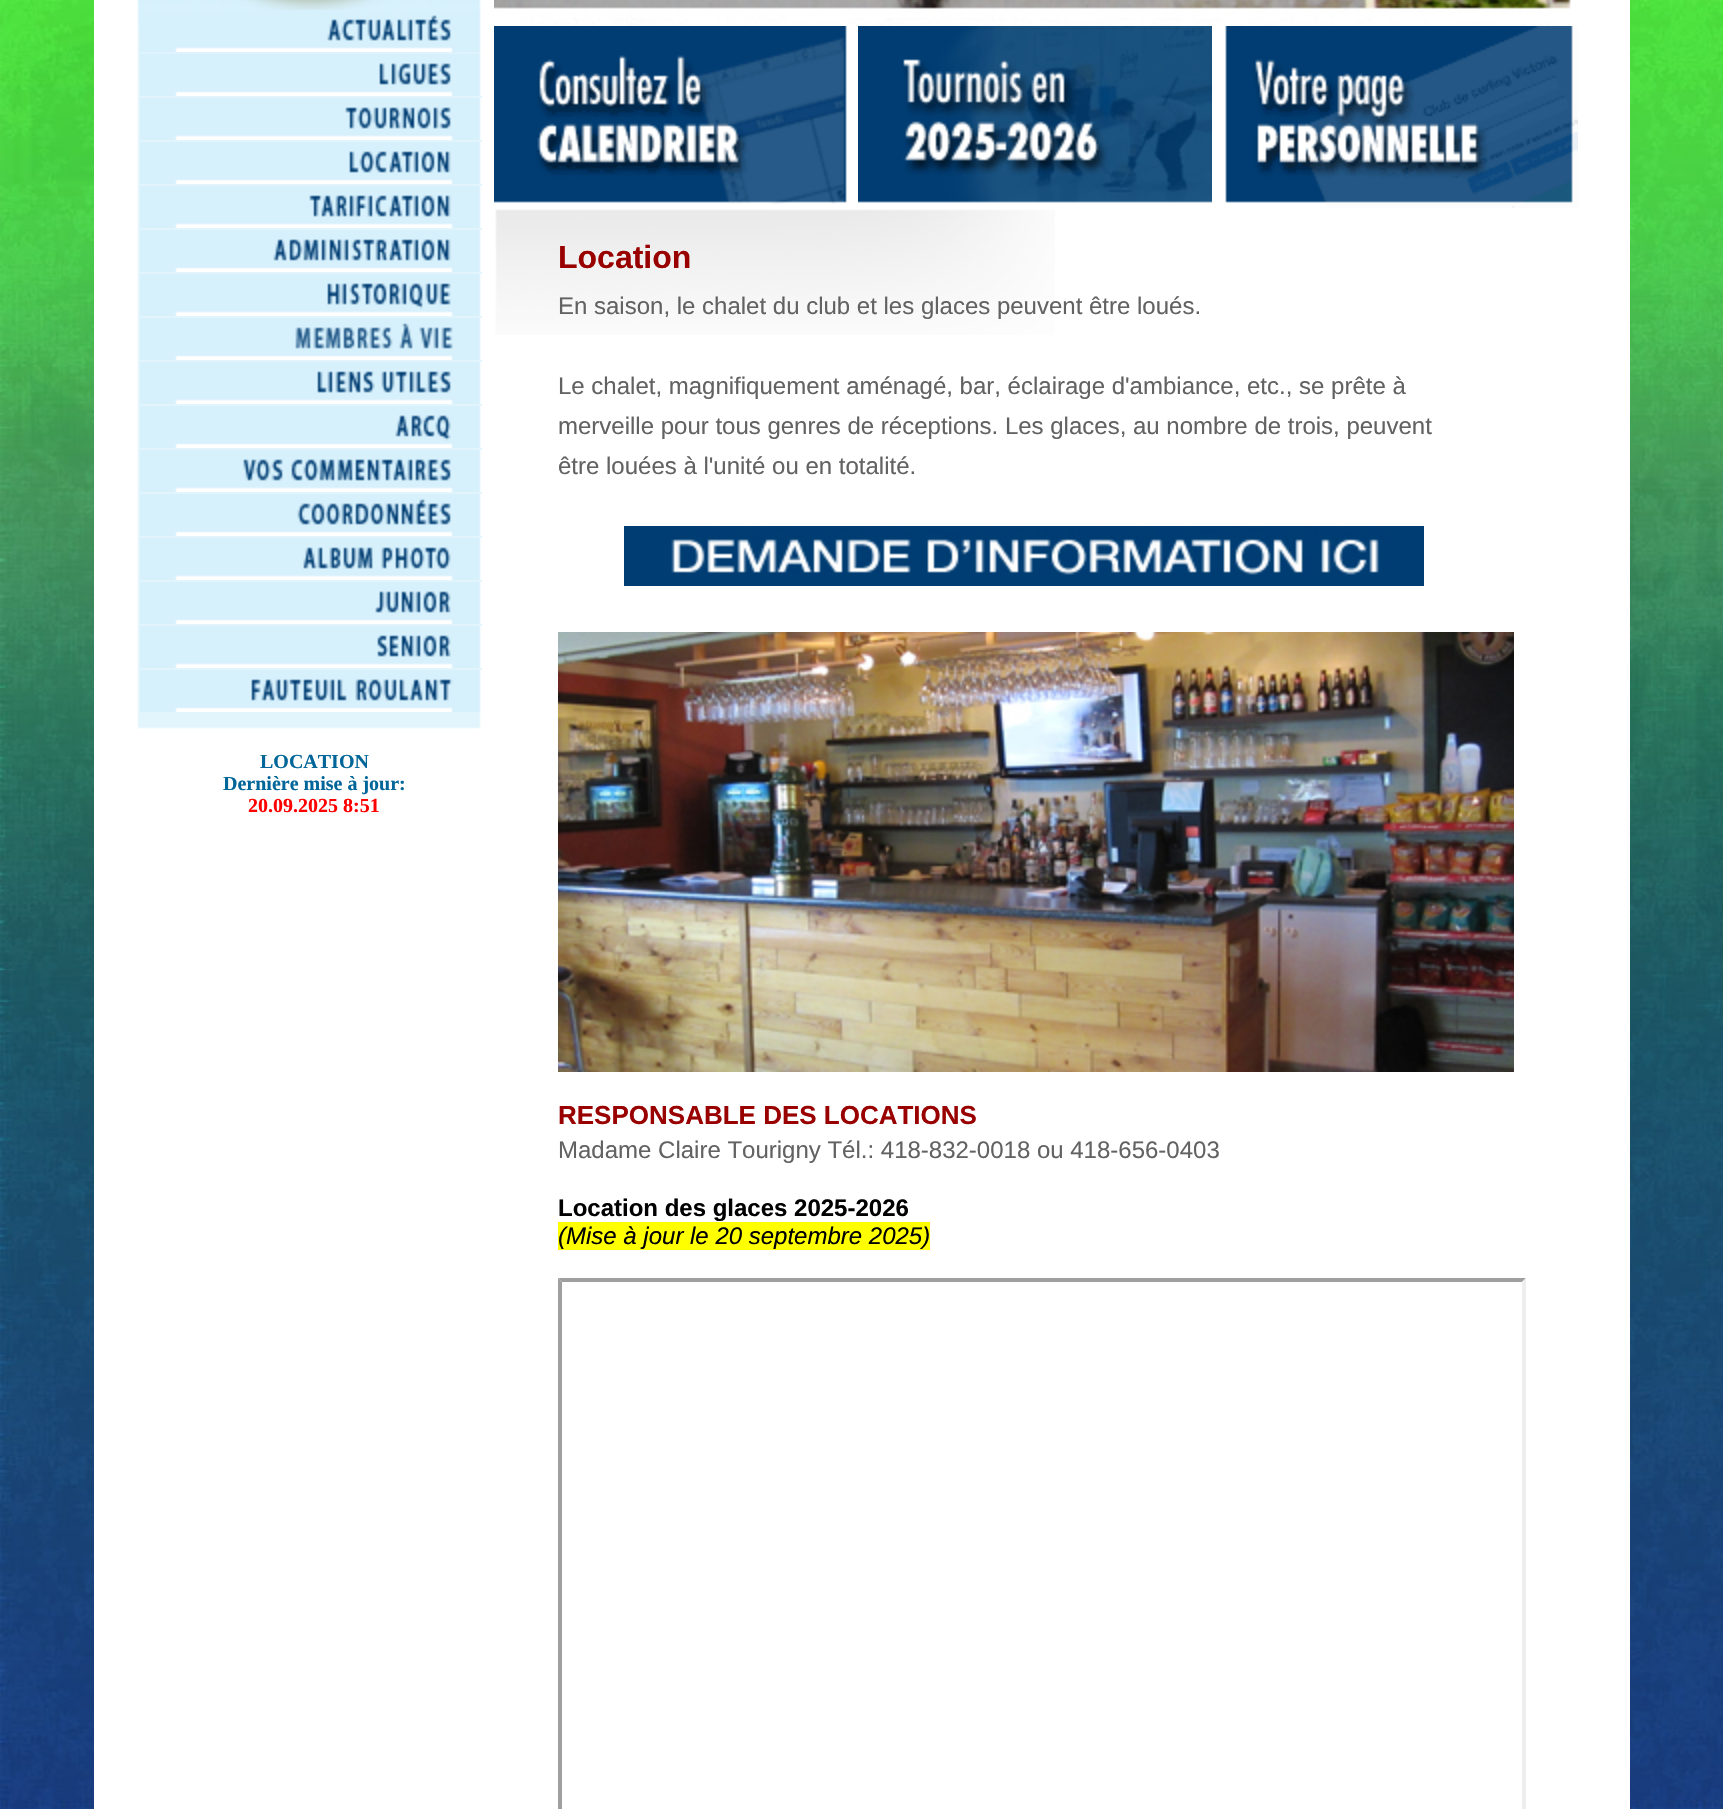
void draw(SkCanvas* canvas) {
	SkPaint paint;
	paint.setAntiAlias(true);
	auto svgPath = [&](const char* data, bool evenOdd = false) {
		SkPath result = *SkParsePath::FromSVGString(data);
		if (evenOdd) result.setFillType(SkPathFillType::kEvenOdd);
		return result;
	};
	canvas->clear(0xffffffff);
	canvas->drawImageRect(SkImages::DeferredFromEncodedData(SkData::MakeFromFileName("img1.png")), SkRect::MakeXYWH(0, 0, 1723, 1809), SkSamplingOptions());
	paint.setColor(0xffffffff);
	canvas->drawRect(SkRect::MakeXYWH(94, 0, 1536, 1809), paint);
	canvas->drawImageRect(SkImages::DeferredFromEncodedData(SkData::MakeFromFileName("img2.png")), SkRect::MakeXYWH(137, 0, 346, 729), SkSamplingOptions());
	canvas->drawImageRect(SkImages::DeferredFromEncodedData(SkData::MakeFromFileName("img3.png")), SkRect::MakeXYWH(140, 10, 341, 42), SkSamplingOptions());
	canvas->drawImageRect(SkImages::DeferredFromEncodedData(SkData::MakeFromFileName("img4.png")), SkRect::MakeXYWH(481, 54, 2, 42), SkSamplingOptions());
	canvas->drawImageRect(SkImages::DeferredFromEncodedData(SkData::MakeFromFileName("img5.png")), SkRect::MakeXYWH(140, 54, 341, 42), SkSamplingOptions());
	canvas->drawImageRect(SkImages::DeferredFromEncodedData(SkData::MakeFromFileName("img4.png")), SkRect::MakeXYWH(481, 98, 2, 42), SkSamplingOptions());
	canvas->drawImageRect(SkImages::DeferredFromEncodedData(SkData::MakeFromFileName("img6.png")), SkRect::MakeXYWH(140, 98, 341, 42), SkSamplingOptions());
	canvas->drawImageRect(SkImages::DeferredFromEncodedData(SkData::MakeFromFileName("img4.png")), SkRect::MakeXYWH(481, 142, 2, 42), SkSamplingOptions());
	canvas->drawImageRect(SkImages::DeferredFromEncodedData(SkData::MakeFromFileName("img7.png")), SkRect::MakeXYWH(140, 142, 341, 42), SkSamplingOptions());
	canvas->drawImageRect(SkImages::DeferredFromEncodedData(SkData::MakeFromFileName("img4.png")), SkRect::MakeXYWH(481, 186, 2, 42), SkSamplingOptions());
	canvas->drawImageRect(SkImages::DeferredFromEncodedData(SkData::MakeFromFileName("img8.png")), SkRect::MakeXYWH(140, 186, 341, 42), SkSamplingOptions());
	canvas->drawImageRect(SkImages::DeferredFromEncodedData(SkData::MakeFromFileName("img4.png")), SkRect::MakeXYWH(481, 230, 2, 42), SkSamplingOptions());
	canvas->drawImageRect(SkImages::DeferredFromEncodedData(SkData::MakeFromFileName("img9.png")), SkRect::MakeXYWH(140, 230, 341, 42), SkSamplingOptions());
	canvas->drawImageRect(SkImages::DeferredFromEncodedData(SkData::MakeFromFileName("img4.png")), SkRect::MakeXYWH(481, 274, 2, 42), SkSamplingOptions());
	canvas->drawImageRect(SkImages::DeferredFromEncodedData(SkData::MakeFromFileName("img10.png")), SkRect::MakeXYWH(140, 274, 341, 42), SkSamplingOptions());
	canvas->drawImageRect(SkImages::DeferredFromEncodedData(SkData::MakeFromFileName("img4.png")), SkRect::MakeXYWH(481, 318, 2, 42), SkSamplingOptions());
	canvas->drawImageRect(SkImages::DeferredFromEncodedData(SkData::MakeFromFileName("img11.png")), SkRect::MakeXYWH(140, 318, 341, 42), SkSamplingOptions());
	canvas->drawImageRect(SkImages::DeferredFromEncodedData(SkData::MakeFromFileName("img4.png")), SkRect::MakeXYWH(481, 362, 2, 42), SkSamplingOptions());
	canvas->drawImageRect(SkImages::DeferredFromEncodedData(SkData::MakeFromFileName("img12.png")), SkRect::MakeXYWH(140, 362, 341, 42), SkSamplingOptions());
	canvas->drawImageRect(SkImages::DeferredFromEncodedData(SkData::MakeFromFileName("img4.png")), SkRect::MakeXYWH(481, 406, 2, 42), SkSamplingOptions());
	canvas->drawImageRect(SkImages::DeferredFromEncodedData(SkData::MakeFromFileName("img13.png")), SkRect::MakeXYWH(140, 406, 341, 42), SkSamplingOptions());
	canvas->drawImageRect(SkImages::DeferredFromEncodedData(SkData::MakeFromFileName("img4.png")), SkRect::MakeXYWH(481, 450, 2, 42), SkSamplingOptions());
	canvas->drawImageRect(SkImages::DeferredFromEncodedData(SkData::MakeFromFileName("img14.png")), SkRect::MakeXYWH(140, 450, 341, 42), SkSamplingOptions());
	canvas->drawImageRect(SkImages::DeferredFromEncodedData(SkData::MakeFromFileName("img4.png")), SkRect::MakeXYWH(481, 494, 2, 42), SkSamplingOptions());
	canvas->drawImageRect(SkImages::DeferredFromEncodedData(SkData::MakeFromFileName("img15.png")), SkRect::MakeXYWH(140, 494, 341, 42), SkSamplingOptions());
	canvas->drawImageRect(SkImages::DeferredFromEncodedData(SkData::MakeFromFileName("img4.png")), SkRect::MakeXYWH(481, 538, 2, 42), SkSamplingOptions());
	canvas->drawImageRect(SkImages::DeferredFromEncodedData(SkData::MakeFromFileName("img16.png")), SkRect::MakeXYWH(140, 538, 341, 42), SkSamplingOptions());
	canvas->drawImageRect(SkImages::DeferredFromEncodedData(SkData::MakeFromFileName("img4.png")), SkRect::MakeXYWH(481, 582, 2, 42), SkSamplingOptions());
	canvas->drawImageRect(SkImages::DeferredFromEncodedData(SkData::MakeFromFileName("img17.png")), SkRect::MakeXYWH(140, 582, 341, 42), SkSamplingOptions());
	canvas->drawImageRect(SkImages::DeferredFromEncodedData(SkData::MakeFromFileName("img4.png")), SkRect::MakeXYWH(481, 626, 2, 42), SkSamplingOptions());
	canvas->drawImageRect(SkImages::DeferredFromEncodedData(SkData::MakeFromFileName("img18.png")), SkRect::MakeXYWH(140, 626, 341, 42), SkSamplingOptions());
	canvas->drawImageRect(SkImages::DeferredFromEncodedData(SkData::MakeFromFileName("img4.png")), SkRect::MakeXYWH(481, 670, 2, 42), SkSamplingOptions());
	canvas->drawImageRect(SkImages::DeferredFromEncodedData(SkData::MakeFromFileName("img19.png")), SkRect::MakeXYWH(140, 670, 341, 42), SkSamplingOptions());
	SkFont f1(fontMgr->matchFamilyStyle("Liberation Serif", SkFontStyle::Bold()), 20);
	f1.setSubpixel(true);
	paint.setColor(0xff006699);
	canvas->drawString("LOCATION", 260, 768, f1, paint);
	canvas->drawString("Dernière mise à jour:", 223, 790, f1, paint);
	paint.setColor(0xffff0000);
	canvas->drawString("20.09.2025 8:51", 248, 812, f1, paint);
	canvas->drawImageRect(SkImages::DeferredFromEncodedData(SkData::MakeFromFileName("img20.png")), SkRect::MakeXYWH(494, 0, 1077, 26), SkSamplingOptions());
	canvas->drawImageRect(SkImages::DeferredFromEncodedData(SkData::MakeFromFileName("img21.png")), SkRect::MakeXYWH(494, 26, 353, 178), SkSamplingOptions());
	canvas->drawImageRect(SkImages::DeferredFromEncodedData(SkData::MakeFromFileName("img22.png")), SkRect::MakeXYWH(858, 26, 354, 177), SkSamplingOptions());
	canvas->drawImageRect(SkImages::DeferredFromEncodedData(SkData::MakeFromFileName("img23.png")), SkRect::MakeXYWH(1225, 26, 353, 182), SkSamplingOptions());
	canvas->drawImageRect(SkImages::DeferredFromEncodedData(SkData::MakeFromFileName("img24.png")), SkRect::MakeXYWH(495, 209, 560, 126), SkSamplingOptions());
	SkFont f2(fontMgr->matchFamilyStyle("Liberation Sans", SkFontStyle::Bold()), 32);
	f2.setSubpixel(true);
	paint.setColor(0xff990000);
	canvas->drawString("Location", 558, 268, f2, paint);
	SkFont f3(fontMgr->matchFamilyStyle("Liberation Sans", SkFontStyle::Normal()), 24);
	f3.setSubpixel(true);
	paint.setColor(0xff626262);
	canvas->drawString("En saison, le chalet du club et les glaces peuvent être loués.", 558, 314, f3, paint);
	canvas->drawString("Le chalet, magnifiquement aménagé, bar, éclairage d'ambiance, etc., se prête à", 558, 394, f3, paint);
	canvas->drawString("merveille pour tous genres de réceptions. Les glaces, au nombre de trois, peuvent", 558, 434, f3, paint);
	canvas->drawString("être louées à l'unité ou en totalité.", 558, 474, f3, paint);
	canvas->drawImageRect(SkImages::DeferredFromEncodedData(SkData::MakeFromFileName("img25.png")), SkRect::MakeXYWH(624, 526, 800, 60), SkSamplingOptions());
	canvas->drawImageRect(SkImages::DeferredFromEncodedData(SkData::MakeFromFileName("img26.png")), SkRect::MakeXYWH(558, 632, 956, 440), SkSamplingOptions());
	SkFont f4(fontMgr->matchFamilyStyle("Liberation Sans", SkFontStyle::Bold()), 26);
	f4.setSubpixel(true);
	paint.setColor(0xff990000);
	canvas->drawString("RESPONSABLE DES LOCATIONS", 558, 1124, f4, paint);
	paint.setColor(0xff626262);
	canvas->drawString("Madame Claire Tourigny Tél.: 418-832-0018 ou 418-656-0403", 558, 1158, f3, paint);
	SkFont f5(fontMgr->matchFamilyStyle("Liberation Sans", SkFontStyle::Bold()), 24);
	f5.setSubpixel(true);
	paint.setColor(0xff000000);
	canvas->drawString("Location des glaces 2025-2026", 558, 1216, f5, paint);
	paint.setColor(0xffffff00);
	canvas->drawRect(SkRect::MakeXYWH(558, 1222, 372, 28), paint);
	SkFont f6(fontMgr->matchFamilyStyle("Liberation Sans", SkFontStyle::Italic()), 24);
	f6.setSubpixel(true);
	paint.setColor(0xff000000);
	canvas->drawString("(Mise à jour le 20 septembre 2025)", 558, 1244, f6, paint);
	paint.setColor(0xff9f9f9f);
	canvas->drawPath(svgPath("M558 1278H1526L1522 1282H562Z"), paint);
	canvas->drawPath(svgPath("M558 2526V1278L562 1282V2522Z"), paint);
	paint.setColor(0xffeeeeee);
	canvas->drawPath(svgPath("M1526 1278V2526L1522 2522V1282Z"), paint);
}
